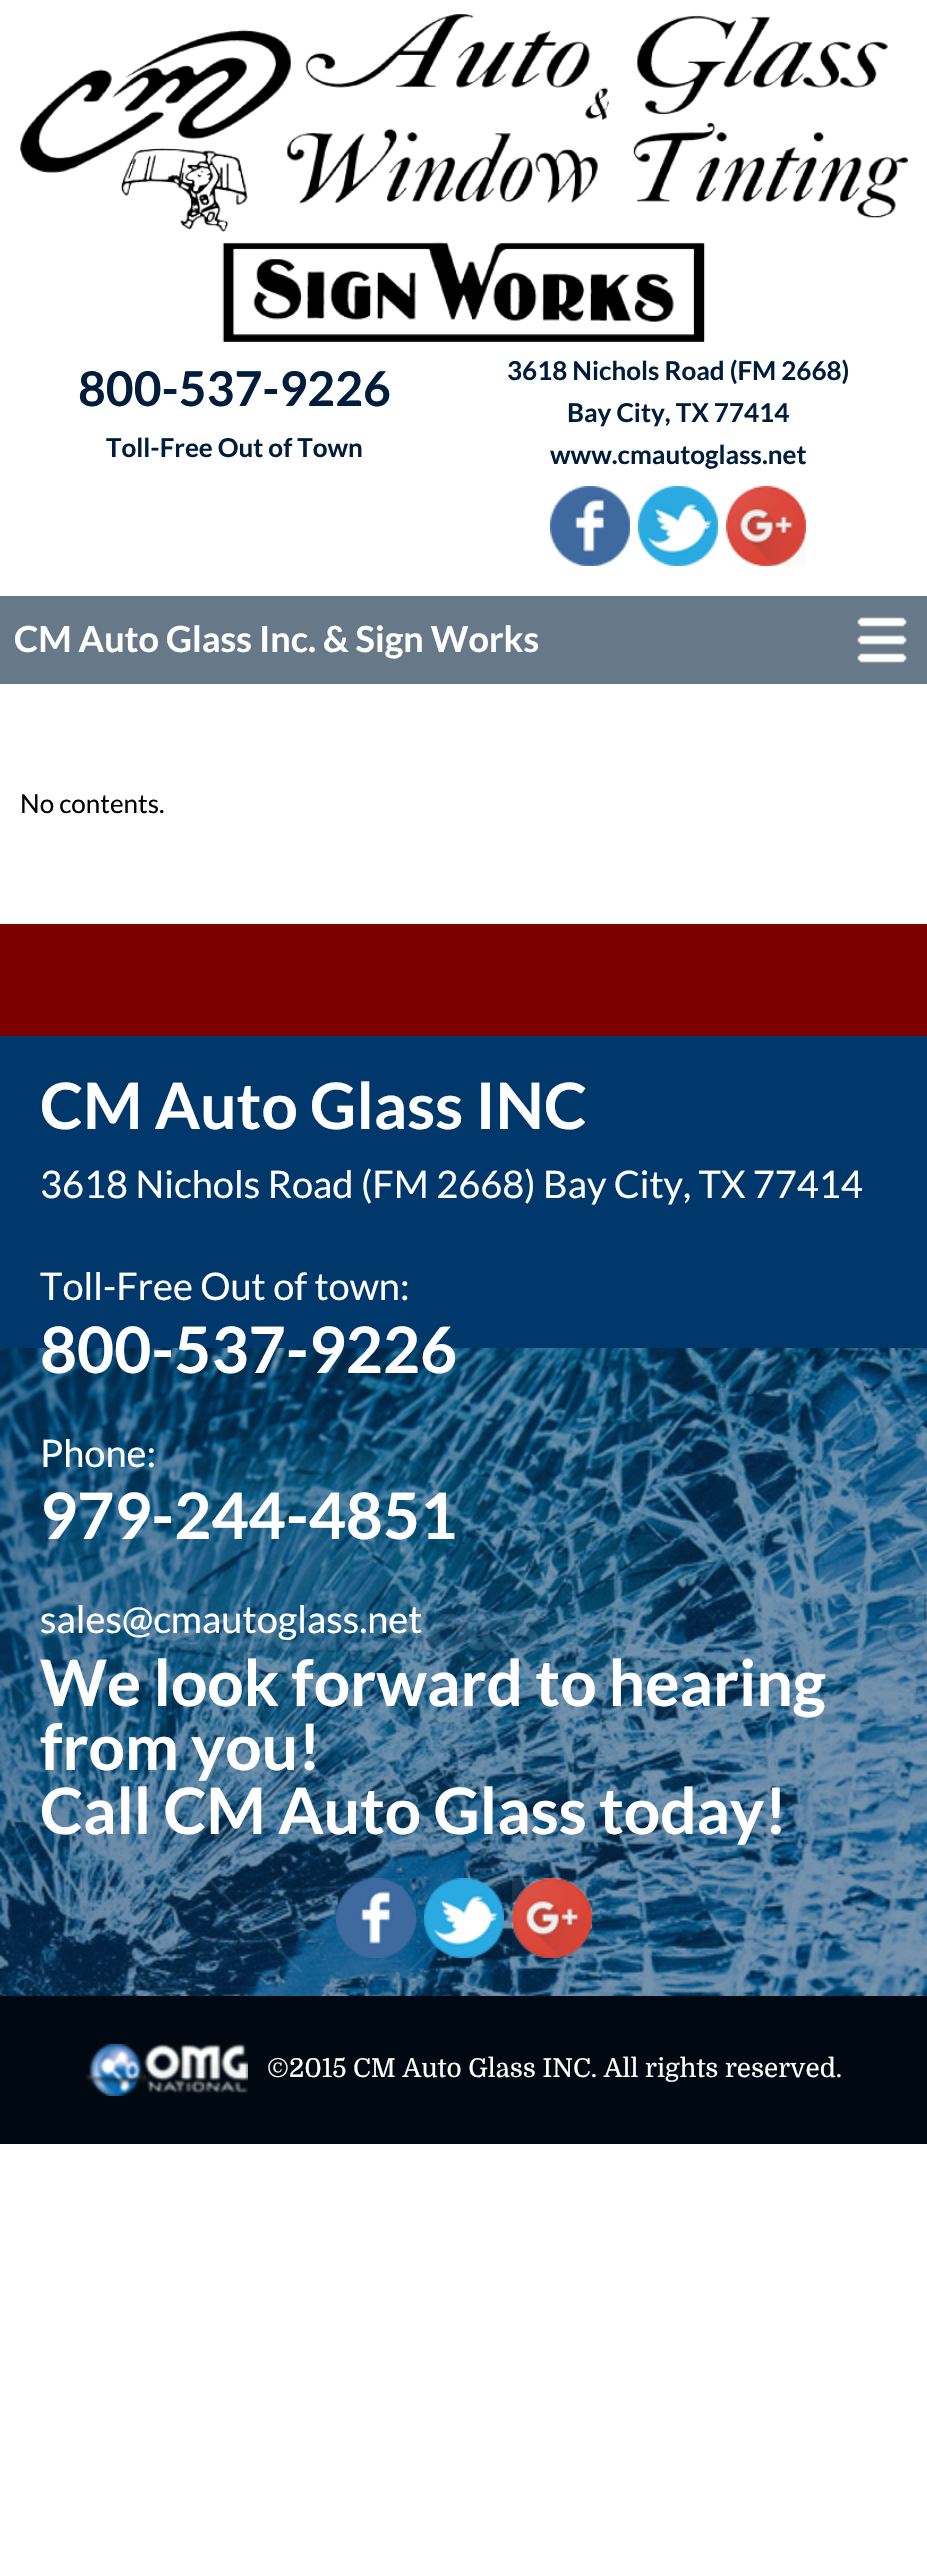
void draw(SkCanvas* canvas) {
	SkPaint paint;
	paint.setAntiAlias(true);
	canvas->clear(0xffffffff);
	canvas->drawImageRect(SkImages::DeferredFromEncodedData(SkData::MakeFromFileName("img1.png")), SkRect::MakeXYWH(20, 14, 888, 328), SkSamplingOptions());
	SkFont f1(fontMgr->matchFamilyStyle("Lato", SkFontStyle::Bold()), 48);
	f1.setSubpixel(true);
	paint.setColor(0xff011d3c);
	canvas->drawString("800-537-9226", 78, 406, f1, paint);
	SkFont f2(fontMgr->matchFamilyStyle("Lato", SkFontStyle::Bold()), 26);
	f2.setSubpixel(true);
	canvas->drawString("Toll-Free Out of Town", 106, 457, f2, paint);
	canvas->drawString("3618 Nichols Road (FM 2668)", 507, 380, f2, paint);
	canvas->drawString("Bay City, TX 77414", 567, 422, f2, paint);
	canvas->drawString("www.cmautoglass.net", 550, 464, f2, paint);
	canvas->drawImageRect(SkImages::DeferredFromEncodedData(SkData::MakeFromFileName("img2.png")), SkRect::MakeXYWH(550, 486, 80, 80), SkSamplingOptions());
	canvas->drawImageRect(SkImages::DeferredFromEncodedData(SkData::MakeFromFileName("img3.png")), SkRect::MakeXYWH(638, 486, 80, 80), SkSamplingOptions());
	canvas->drawImageRect(SkImages::DeferredFromEncodedData(SkData::MakeFromFileName("img4.png")), SkRect::MakeXYWH(726, 486, 80, 80), SkSamplingOptions());
	paint.setColor(0xff677888);
	canvas->drawRect(SkRect::MakeXYWH(0, 596, 927, 88), paint);
	SkFont f3(fontMgr->matchFamilyStyle("Lato", SkFontStyle::Bold()), 36);
	f3.setSubpixel(true);
	paint.setColor(0xffffffff);
	canvas->drawString("CM Auto Glass Inc. & Sign Works", 14, 652, f3, paint);
	canvas->drawImageRect(SkImages::DeferredFromEncodedData(SkData::MakeFromFileName("img5.png")), SkRect::MakeXYWH(857, 617, 50, 46), SkSamplingOptions());
	SkFont f4(fontMgr->matchFamilyStyle("Lato", SkFontStyle::Normal()), 26);
	f4.setSubpixel(true);
	paint.setColor(0xff000000);
	canvas->drawString("No contents.", 20, 813, f4, paint);
	paint.setColor(0xff7d0000);
	canvas->drawRect(SkRect::MakeXYWH(0, 924, 927, 112), paint);
	paint.setColor(0xff01386b);
	canvas->drawRect(SkRect::MakeXYWH(0, 1036, 927, 960), paint);
	canvas->drawImageRect(SkImages::DeferredFromEncodedData(SkData::MakeFromFileName("img6.png")), SkRect::MakeXYWH(0, 1348, 927, 648), SkSamplingOptions());
	SkFont f5(fontMgr->matchFamilyStyle("Lato", SkFontStyle::Bold()), 64);
	f5.setSubpixel(true);
	paint.setColor(0xffffffff);
	canvas->drawString("CM Auto Glass INC", 40, 1129, f5, paint);
	SkFont f6(fontMgr->matchFamilyStyle("Lato", SkFontStyle::Normal()), 38);
	f6.setSubpixel(true);
	canvas->drawString("3618 Nichols Road (FM 2668) Bay City, TX 77414", 40, 1198, f6, paint);
	canvas->drawString("Toll-Free Out of town:", 40, 1300, f6, paint);
	canvas->drawString("800-537-9226", 40, 1373, f5, paint);
	canvas->drawString("Phone:", 40, 1467, f6, paint);
	canvas->drawString("979-244-4851", 40, 1539, f5, paint);
	canvas->drawString("sales@cmautoglass.net", 40, 1633, f6, paint);
	canvas->drawString("We look forward to hearing", 40, 1706, f5, paint);
	canvas->drawString("from you!", 40, 1770, f5, paint);
	canvas->drawString("Call CM Auto Glass today!", 40, 1834, f5, paint);
	canvas->drawImageRect(SkImages::DeferredFromEncodedData(SkData::MakeFromFileName("img7.png")), SkRect::MakeXYWH(336, 1878, 80, 80), SkSamplingOptions());
	canvas->drawImageRect(SkImages::DeferredFromEncodedData(SkData::MakeFromFileName("img8.png")), SkRect::MakeXYWH(424, 1878, 80, 80), SkSamplingOptions());
	canvas->drawImageRect(SkImages::DeferredFromEncodedData(SkData::MakeFromFileName("img9.png")), SkRect::MakeXYWH(512, 1878, 80, 80), SkSamplingOptions());
	paint.setColor(0xff000911);
	canvas->drawRect(SkRect::MakeXYWH(0, 1996, 927, 148), paint);
	canvas->drawImageRect(SkImages::DeferredFromEncodedData(SkData::MakeFromFileName("img10.png")), SkRect::MakeXYWH(86, 2044, 162, 52), SkSamplingOptions());
	SkFont f7(fontMgr->matchFamilyStyle("Domine", SkFontStyle::Normal()), 26);
	f7.setSubpixel(true);
	paint.setColor(0xffffffff);
	canvas->drawString("©2015 CM Auto Glass INC. All rights reserved.", 267, 2077, f7, paint);
}
